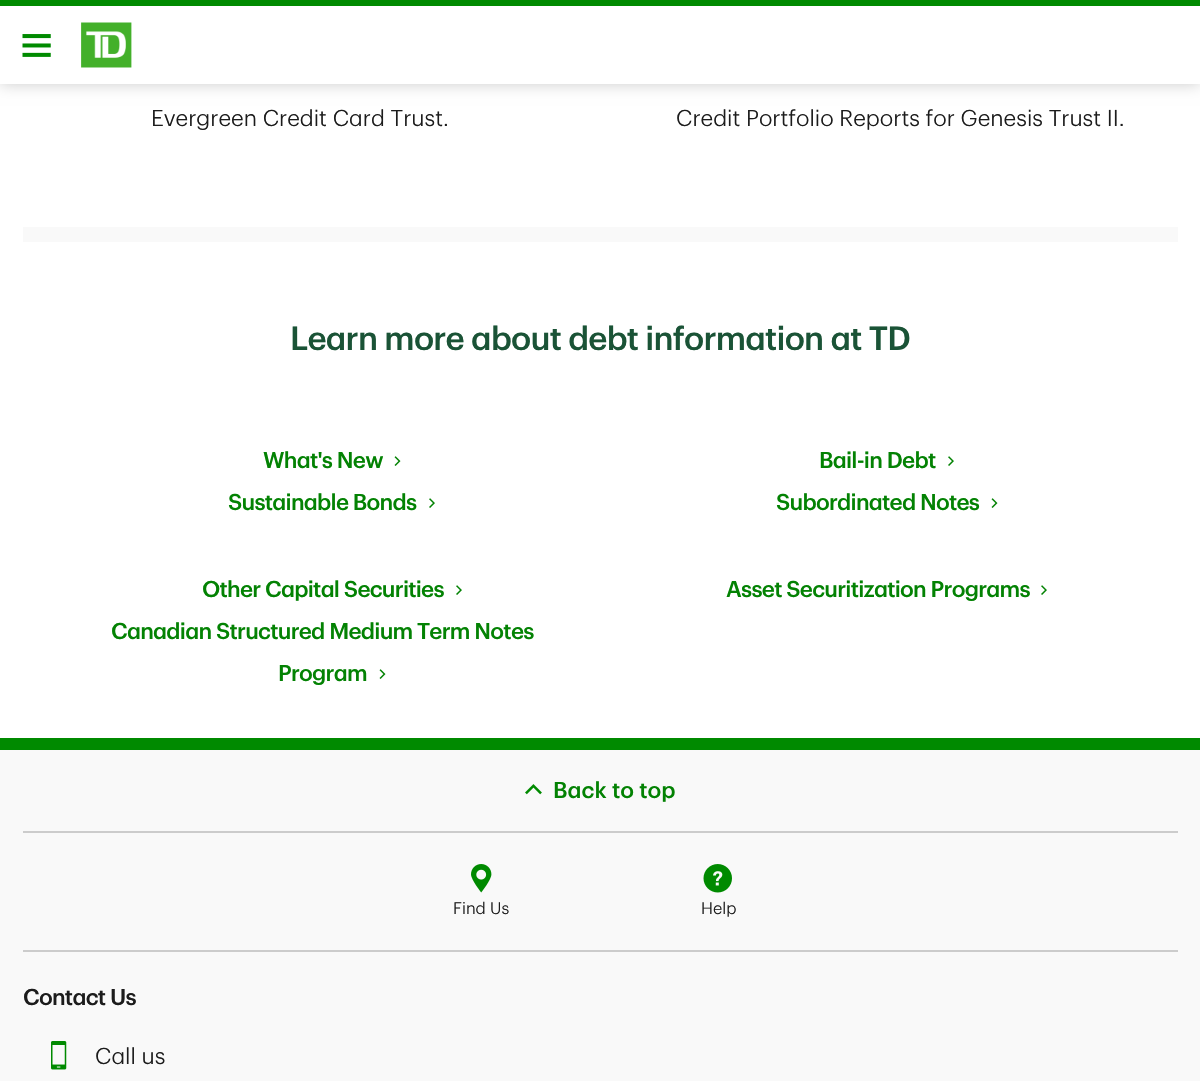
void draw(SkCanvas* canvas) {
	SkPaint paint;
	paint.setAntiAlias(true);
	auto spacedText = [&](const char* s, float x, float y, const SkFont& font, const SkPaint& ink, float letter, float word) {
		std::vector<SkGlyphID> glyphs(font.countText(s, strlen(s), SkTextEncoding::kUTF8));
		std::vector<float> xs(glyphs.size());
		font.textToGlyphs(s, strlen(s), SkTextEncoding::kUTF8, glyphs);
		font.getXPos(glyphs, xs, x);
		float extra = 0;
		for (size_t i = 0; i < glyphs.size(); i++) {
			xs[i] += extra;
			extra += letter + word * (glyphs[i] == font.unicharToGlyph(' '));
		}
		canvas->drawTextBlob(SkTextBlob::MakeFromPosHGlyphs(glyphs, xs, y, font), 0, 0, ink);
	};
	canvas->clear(0xffffffff);
	paint.setColor(0x33000000);
	paint.setMaskFilter(SkMaskFilter::MakeBlur(kNormal_SkBlurStyle, 7.5));
	canvas->drawRect(SkRect::MakeXYWH(0, 0, 1200, 84), paint);
	paint.setMaskFilter(nullptr);
	paint.setColor(0xffffffff);
	canvas->drawRect(SkRect::MakeXYWH(0, 6, 1200, 78), paint);
	paint.setColor(0xff008a00);
	canvas->drawRect(SkRect::MakeXYWH(0, 0, 1200, 6), paint);
	canvas->drawImageRect(SkImages::DeferredFromEncodedData(SkData::MakeFromFileName("img1.png")), SkRect::MakeXYWH(22, 34, 29, 23), SkSamplingOptions());
	canvas->drawImageRect(SkImages::DeferredFromEncodedData(SkData::MakeFromFileName("img2.png")), SkRect::MakeXYWH(81, 22, 51, 46), SkSamplingOptions());
	SkFont f1(fontMgr->matchFamilyStyle("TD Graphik", SkFontStyle(300, SkFontStyle::kNormal_Width, SkFontStyle::kUpright_Slant)), 22.5);
	f1.setSubpixel(true);
	paint.setColor(0xff1c1c1c);
	canvas->drawString("Evergreen Credit Card Trust.", 151, 126, f1, paint);
	canvas->drawString("Credit Portfolio Reports for Genesis Trust II.", 676, 126, f1, paint);
	paint.setColor(0xfff9f9f9);
	canvas->drawRect(SkRect::MakeXYWH(23, 227, 1155, 15), paint);
	SkFont f2(fontMgr->matchFamilyStyle("TD Graphik", SkFontStyle(500, SkFontStyle::kNormal_Width, SkFontStyle::kUpright_Slant)), 33);
	f2.setSubpixel(true);
	paint.setColor(0xff1a5336);
	spacedText("Learn more about debt information at TD", 290, 350, f2, paint, -0.75, 0);
	SkFont f3(fontMgr->matchFamilyStyle("TD Graphik", SkFontStyle(500, SkFontStyle::kNormal_Width, SkFontStyle::kUpright_Slant)), 22.5);
	f3.setSubpixel(true);
	paint.setColor(0xff038203);
	spacedText("What's New", 263, 468, f3, paint, -0.75, 0);
	canvas->drawImageRect(SkImages::DeferredFromEncodedData(SkData::MakeFromFileName("img3.png")), SkRect::MakeXYWH(394, 456, 7, 10), SkSamplingOptions());
	spacedText("Bail-in Debt", 819, 468, f3, paint, -0.75, 0);
	canvas->drawImageRect(SkImages::DeferredFromEncodedData(SkData::MakeFromFileName("img4.png")), SkRect::MakeXYWH(948, 456, 6, 10), SkSamplingOptions());
	spacedText("Sustainable Bonds", 228, 510, f3, paint, -0.75, 0);
	canvas->drawImageRect(SkImages::DeferredFromEncodedData(SkData::MakeFromFileName("img4.png")), SkRect::MakeXYWH(429, 498, 6, 10), SkSamplingOptions());
	spacedText("Subordinated Notes", 776, 510, f3, paint, -0.75, 0);
	canvas->drawImageRect(SkImages::DeferredFromEncodedData(SkData::MakeFromFileName("img3.png")), SkRect::MakeXYWH(991, 498, 7, 10), SkSamplingOptions());
	spacedText("Other Capital Securities", 202, 597, f3, paint, -0.75, 0);
	canvas->drawImageRect(SkImages::DeferredFromEncodedData(SkData::MakeFromFileName("img4.png")), SkRect::MakeXYWH(456, 585, 6, 10), SkSamplingOptions());
	spacedText("Asset Securitization Programs", 726, 597, f3, paint, -0.75, 0);
	canvas->drawImageRect(SkImages::DeferredFromEncodedData(SkData::MakeFromFileName("img4.png")), SkRect::MakeXYWH(1041, 585, 6, 10), SkSamplingOptions());
	spacedText("Canadian Structured Medium Term Notes", 111, 639, f3, paint, -0.75, 0);
	spacedText("Program", 278, 681, f3, paint, -0.75, 0);
	canvas->drawImageRect(SkImages::DeferredFromEncodedData(SkData::MakeFromFileName("img3.png")), SkRect::MakeXYWH(379, 669, 7, 10), SkSamplingOptions());
	paint.setColor(0xff008a00);
	canvas->drawRect(SkRect::MakeXYWH(0, 738, 1200, 12), paint);
	paint.setColor(0xfff9f9f9);
	canvas->drawRect(SkRect::MakeXYWH(0, 750, 1200, 331), paint);
	canvas->drawImageRect(SkImages::DeferredFromEncodedData(SkData::MakeFromFileName("img5.png")), SkRect::MakeXYWH(525, 784, 17, 11), SkSamplingOptions());
	paint.setColor(0xff038203);
	canvas->drawString("Back to top", 553, 798, f3, paint);
	paint.setColor(0xffcccccc);
	canvas->drawRect(SkRect::MakeXYWH(23, 831, 1155, 2), paint);
	canvas->drawRect(SkRect::MakeXYWH(23, 950, 1155, 2), paint);
	canvas->drawImageRect(SkImages::DeferredFromEncodedData(SkData::MakeFromFileName("img6.png")), SkRect::MakeXYWH(471, 864, 21, 29), SkSamplingOptions());
	SkFont f4(fontMgr->matchFamilyStyle("TD Graphik", SkFontStyle(300, SkFontStyle::kNormal_Width, SkFontStyle::kUpright_Slant)), 16.5);
	f4.setSubpixel(true);
	paint.setColor(0xff1c1c1c);
	canvas->drawString("Find Us", 453, 914, f4, paint);
	canvas->drawImageRect(SkImages::DeferredFromEncodedData(SkData::MakeFromFileName("img7.png")), SkRect::MakeXYWH(703, 864, 29, 29), SkSamplingOptions());
	canvas->drawString("Help", 701, 914, f4, paint);
	spacedText("Contact Us", 23, 1005, f3, paint, -0.75, 0);
	canvas->drawImageRect(SkImages::DeferredFromEncodedData(SkData::MakeFromFileName("img8.png")), SkRect::MakeXYWH(51, 1041, 16, 29), SkSamplingOptions());
	canvas->drawString("Call us", 95, 1064, f1, paint);
}
